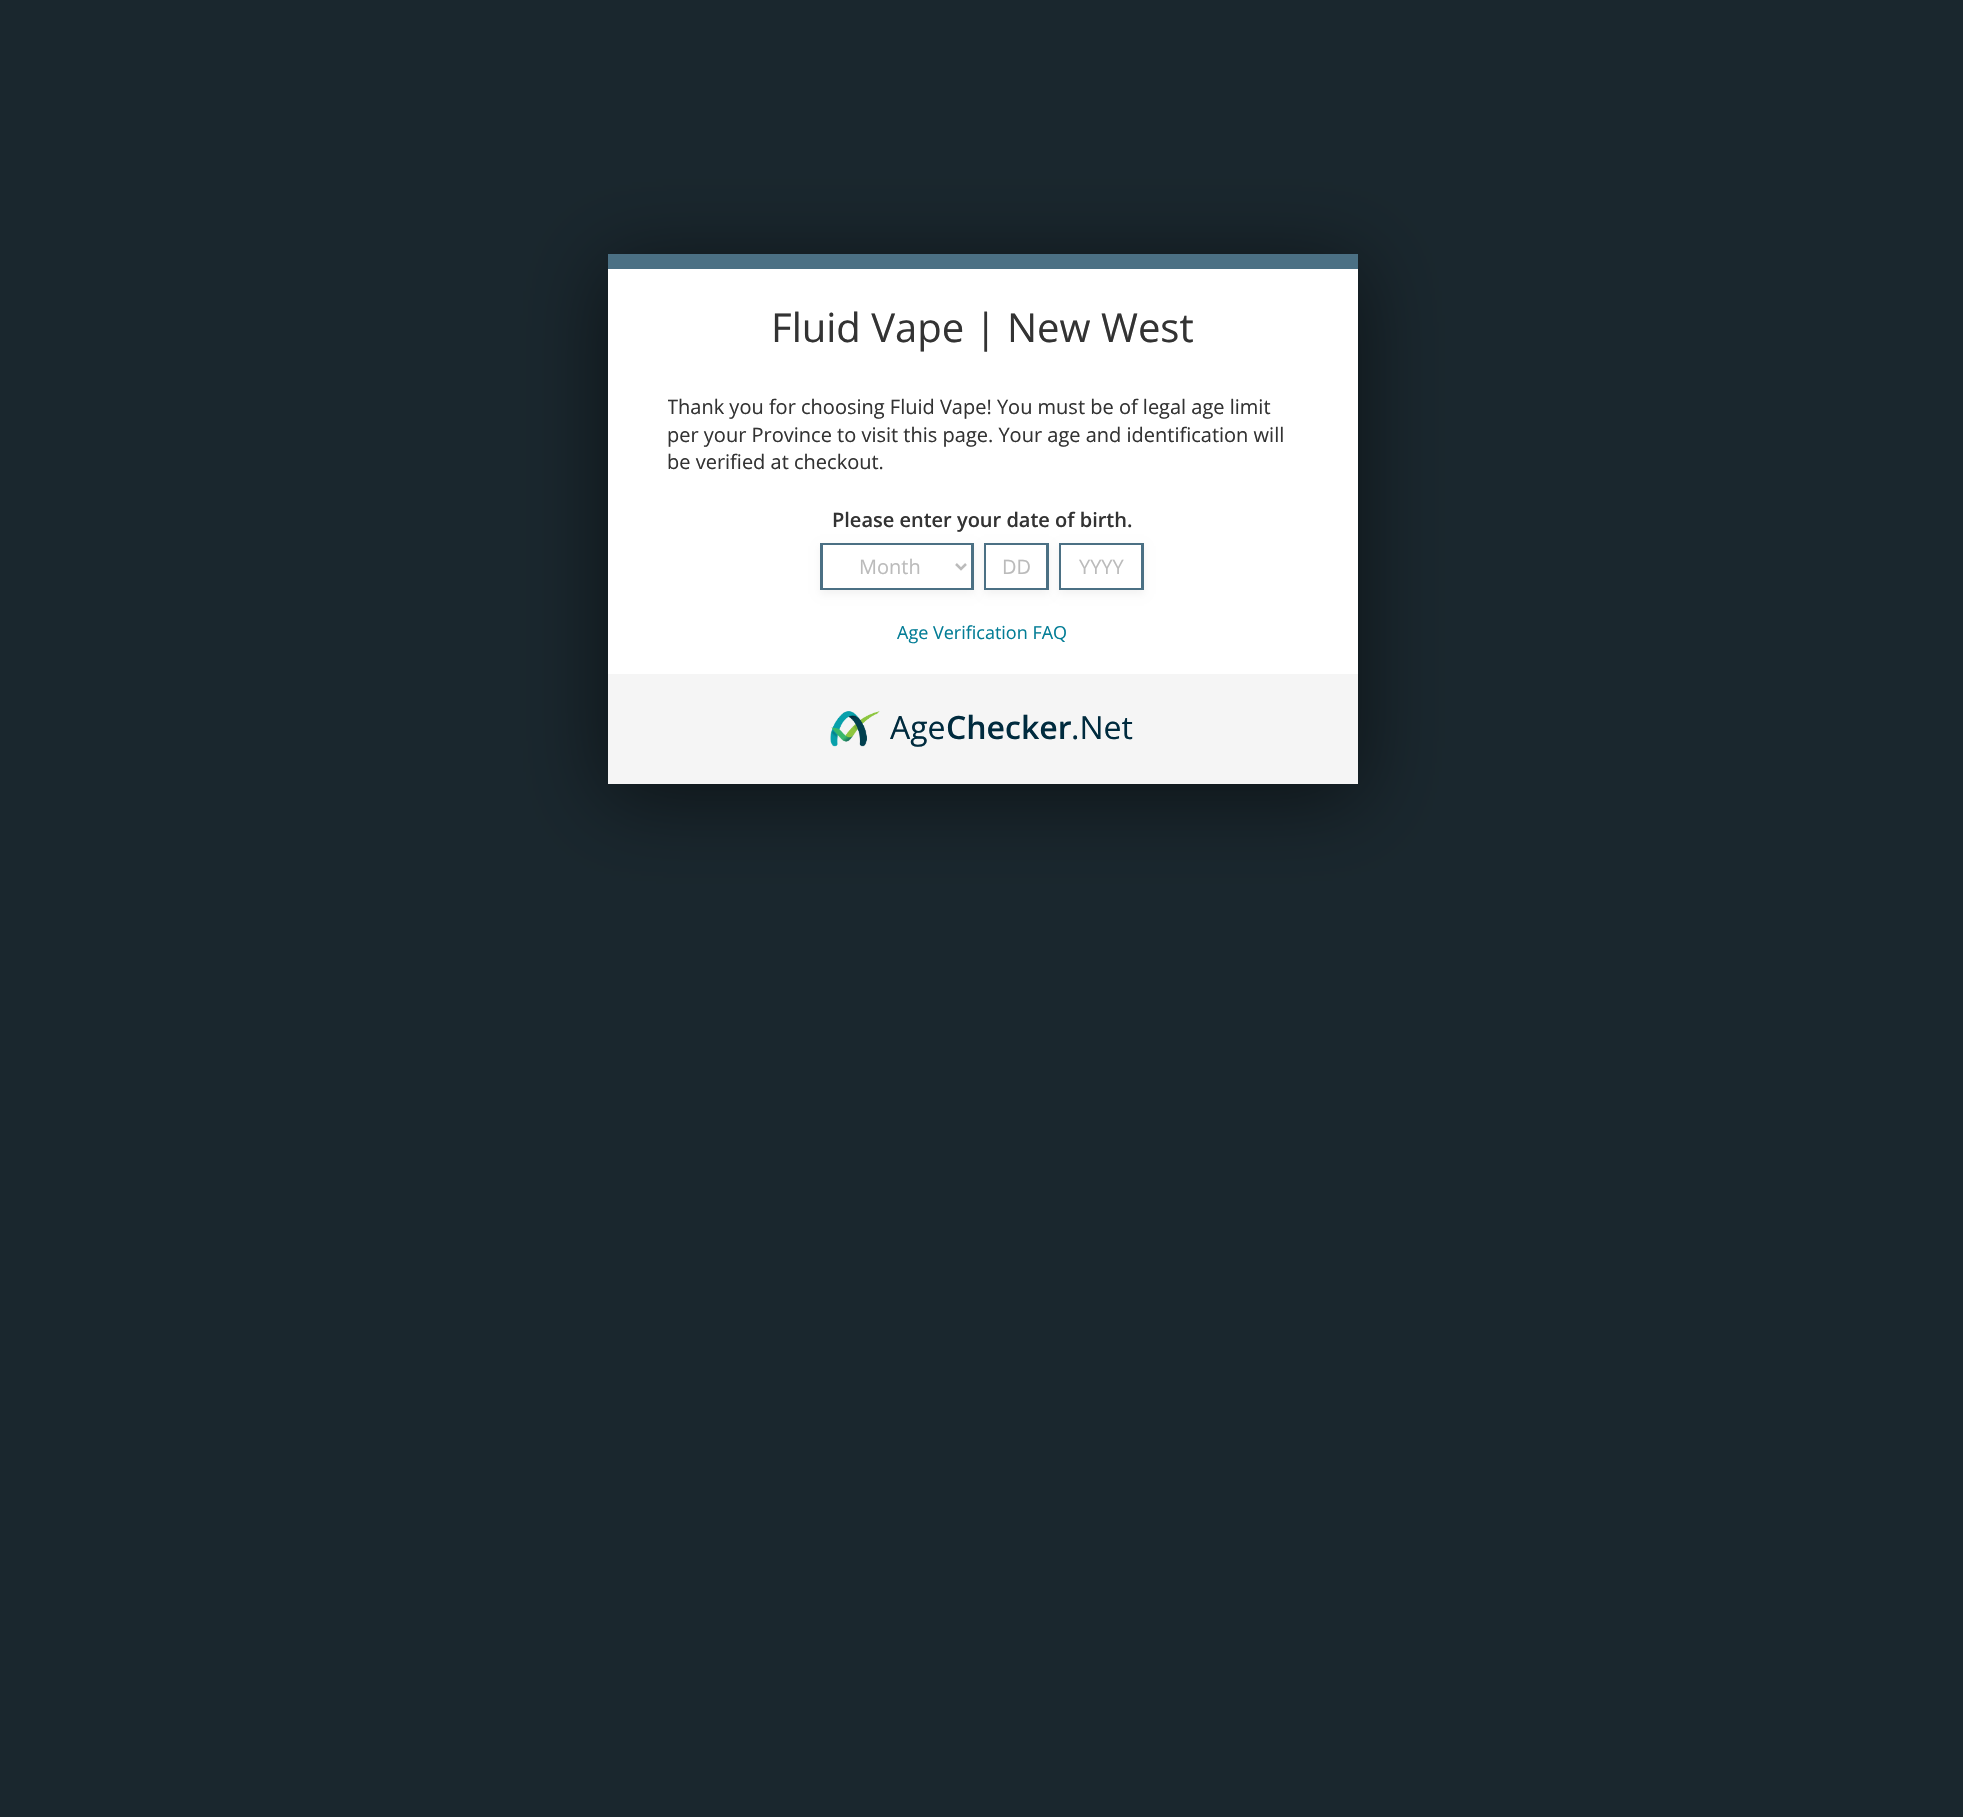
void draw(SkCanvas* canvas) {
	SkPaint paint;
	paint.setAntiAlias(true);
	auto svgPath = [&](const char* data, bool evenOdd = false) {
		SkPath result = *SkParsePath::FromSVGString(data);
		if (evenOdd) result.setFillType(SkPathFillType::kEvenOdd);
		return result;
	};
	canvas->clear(0xff1a272e);
	paint.setColor(0x80000000);
	paint.setMaskFilter(SkMaskFilter::MakeBlur(kNormal_SkBlurStyle, 40));
	canvas->drawRect(SkRect::MakeXYWH(604, 263, 757, 537), paint);
	paint.setMaskFilter(nullptr);
	paint.setColor(0xffffffff);
	canvas->drawRect(SkRect::MakeXYWH(608, 269, 750, 405), paint);
	paint.setColor(0xff4b7084);
	canvas->drawRect(SkRect::MakeXYWH(608, 254, 750, 15), paint);
	SkFont f1(fontMgr->matchFamilyStyle("Open Sans", SkFontStyle::Normal()), 40);
	f1.setSubpixel(true);
	paint.setColor(0xff333333);
	canvas->drawString("Fluid Vape | New West", 771, 342, f1, paint);
	canvas->save();
	canvas->clipRect(SkRect::MakeXYWH(668, 393, 630, 82));
	SkFont f2(fontMgr->matchFamilyStyle("Open Sans", SkFontStyle::Normal()), 20);
	f2.setSubpixel(true);
	canvas->drawString("Thank you for choosing Fluid Vape! You must be of legal age limit", 667, 414, f2, paint);
	canvas->restore();
	canvas->drawString("per your Province to visit this page. Your age and identification will", 667, 442, f2, paint);
	canvas->drawString("be verified at checkout.", 667, 469, f2, paint);
	SkFont f3(fontMgr->matchFamilyStyle("Open Sans", SkFontStyle(600, SkFontStyle::kNormal_Width, SkFontStyle::kUpright_Slant)), 20);
	f3.setSubpixel(true);
	canvas->drawString("Please enter your date of birth.", 832, 527, f3, paint);
	paint.setColor(0x0d000000);
	paint.setMaskFilter(SkMaskFilter::MakeBlur(kNormal_SkBlurStyle, 4));
	canvas->drawRect(SkRect::MakeXYWH(820, 546, 154, 48), paint);
	paint.setMaskFilter(nullptr);
	paint.setColor(0xff4b7084);
	canvas->drawRect(SkRect::MakeXYWH(820, 543, 154, 47), paint);
	paint.setColor(0xffffffff);
	canvas->drawRect(SkRect::MakeXYWH(823, 545, 148, 43), paint);
	paint.setStroke(true);
	paint.setStrokeWidth(2.5);
	paint.setColor(0xffbbbbbb);
	canvas->drawPath(svgPath("M956 564L961 569L966 564"), paint);
	paint.setStroke(false);
	canvas->drawString("Month", 859, 574, f2, paint);
	paint.setColor(0x0d000000);
	paint.setMaskFilter(SkMaskFilter::MakeBlur(kNormal_SkBlurStyle, 4));
	canvas->drawRect(SkRect::MakeXYWH(984, 546, 65, 48), paint);
	paint.setMaskFilter(nullptr);
	paint.setColor(0xff4b7084);
	canvas->drawRect(SkRect::MakeXYWH(984, 543, 65, 47), paint);
	paint.setColor(0xffffffff);
	canvas->drawRect(SkRect::MakeXYWH(986, 545, 60, 43), paint);
	paint.setColor(0xffbbbbbb);
	canvas->drawString("DD", 1002, 574, f2, paint);
	paint.setColor(0x0d000000);
	paint.setMaskFilter(SkMaskFilter::MakeBlur(kNormal_SkBlurStyle, 4));
	canvas->drawRect(SkRect::MakeXYWH(1059, 546, 85, 48), paint);
	paint.setMaskFilter(nullptr);
	paint.setColor(0xff4b7084);
	canvas->drawRect(SkRect::MakeXYWH(1059, 543, 85, 47), paint);
	paint.setColor(0xffffffff);
	canvas->drawRect(SkRect::MakeXYWH(1061, 545, 80, 43), paint);
	paint.setColor(0xffbbbbbb);
	canvas->drawString("YYYY", 1079, 574, f2, paint);
	SkFont f4(fontMgr->matchFamilyStyle("Open Sans", SkFontStyle::Normal()), 18);
	f4.setSubpixel(true);
	paint.setColor(0xff037d96);
	canvas->drawString("Age Verification FAQ", 897, 639, f4, paint);
	paint.setColor(0xfff5f5f5);
	canvas->drawRect(SkRect::MakeXYWH(608, 674, 750, 110), paint);
	canvas->drawImageRect(SkImages::DeferredFromEncodedData(SkData::MakeFromFileName("img1.png")), SkRect::MakeXYWH(830, 711, 50, 36), SkSamplingOptions());
	SkFont f5(fontMgr->matchFamilyStyle("Open Sans", SkFontStyle::Normal()), 32);
	f5.setSubpixel(true);
	paint.setColor(0xff002b3e);
	canvas->drawString("Age", 890, 739, f5, paint);
	SkFont f6(fontMgr->matchFamilyStyle("Open Sans", SkFontStyle(600, SkFontStyle::kNormal_Width, SkFontStyle::kUpright_Slant)), 32);
	f6.setSubpixel(true);
	canvas->drawString("Checker", 946, 739, f6, paint);
	canvas->drawString(".Net", 1071, 739, f5, paint);
}
